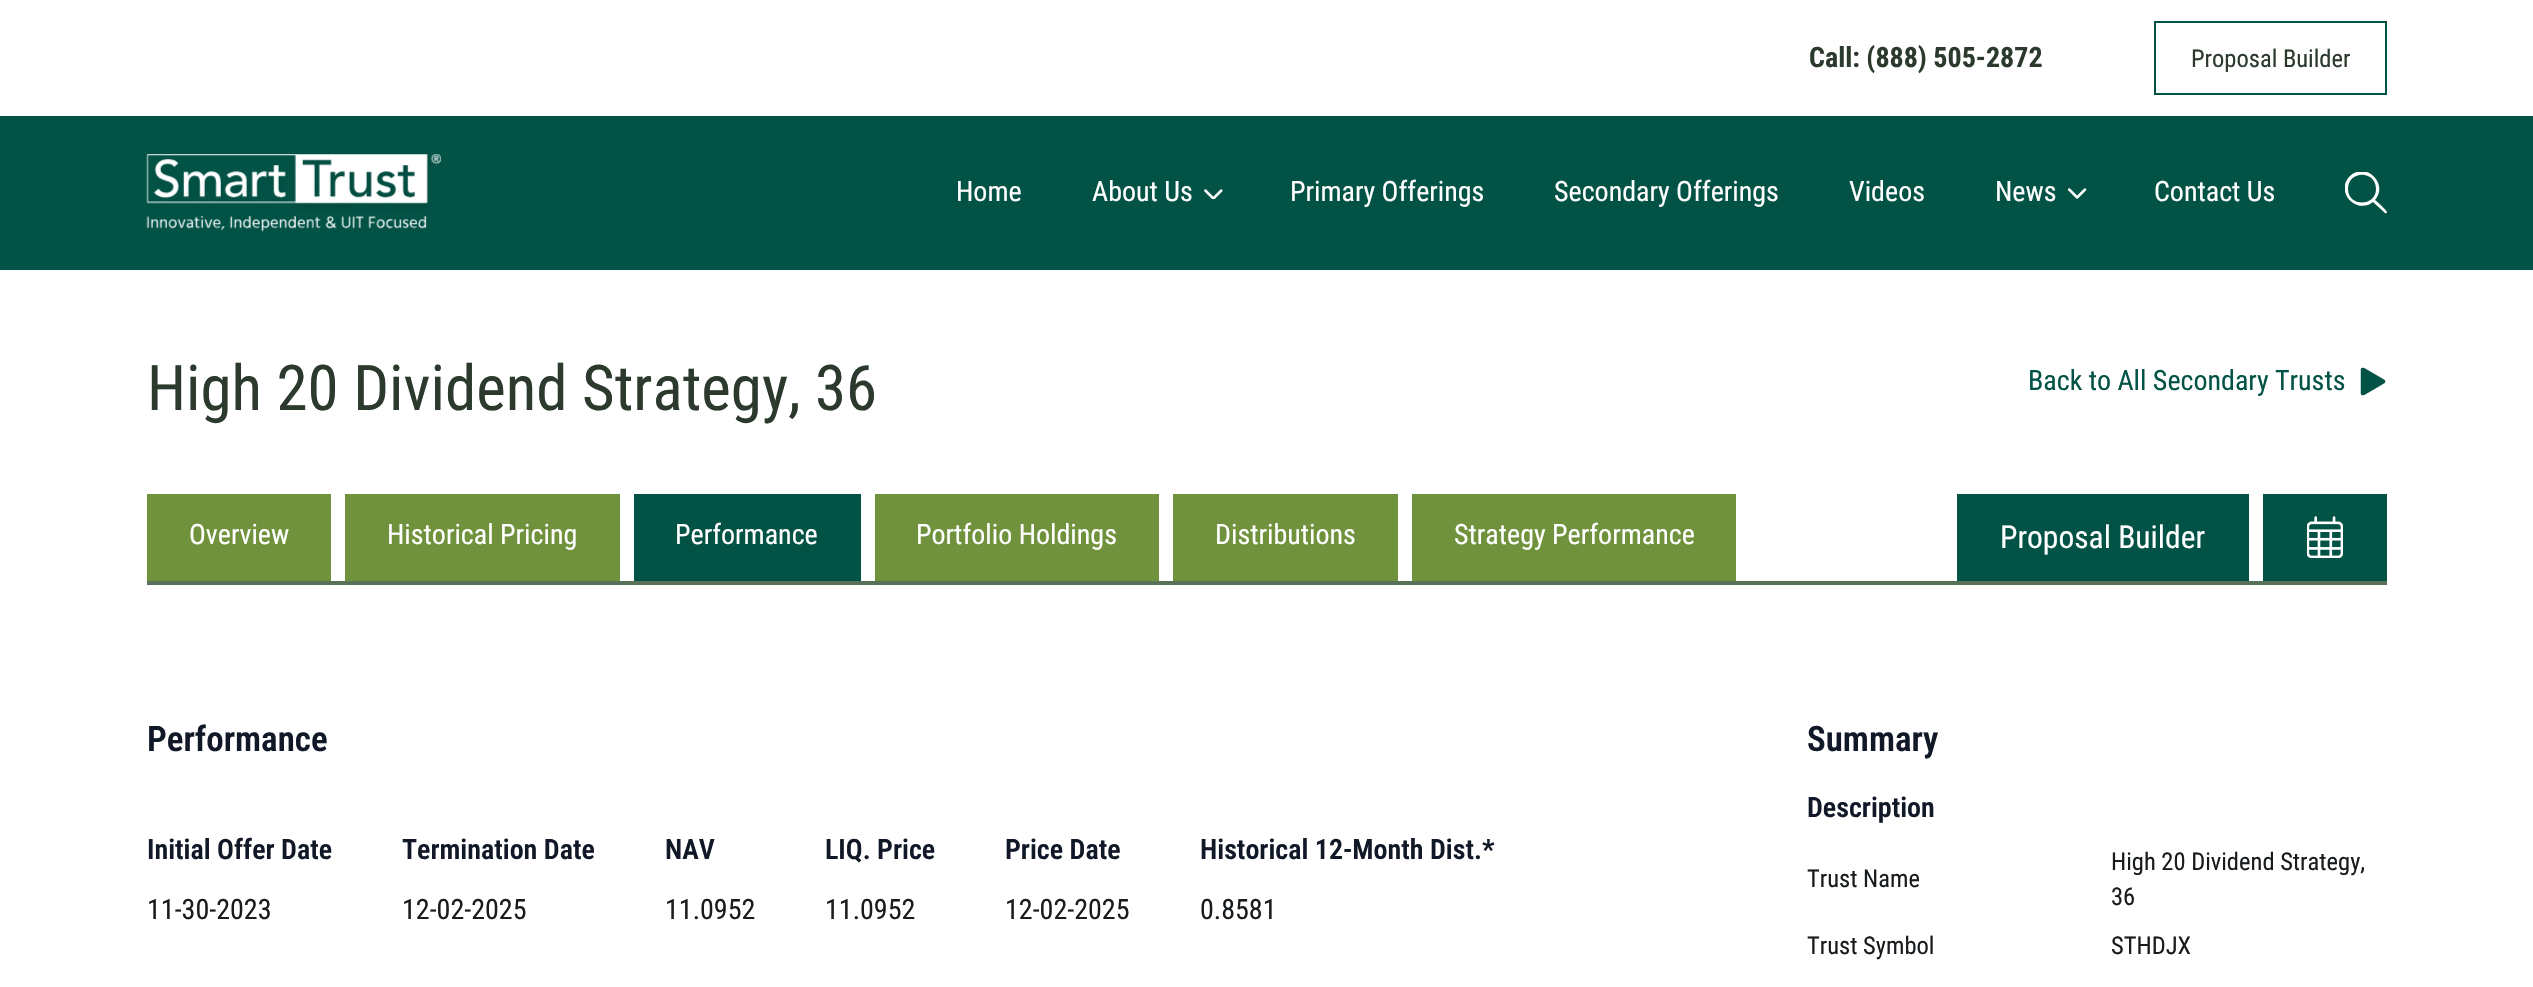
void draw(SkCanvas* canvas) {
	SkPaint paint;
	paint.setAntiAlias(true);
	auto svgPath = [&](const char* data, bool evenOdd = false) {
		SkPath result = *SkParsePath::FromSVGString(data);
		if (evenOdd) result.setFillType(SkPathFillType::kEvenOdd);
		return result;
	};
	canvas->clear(0xffffffff);
	SkFont f1(fontMgr->matchFamilyStyle("Roboto Condensed", SkFontStyle::Bold()), 28);
	f1.setSubpixel(true);
	paint.setColor(0xff2c392d);
	canvas->drawString("Call: (888) 505-2872", 1809, 67, f1, paint);
	paint.setStroke(true);
	paint.setStrokeWidth(2);
	paint.setColor(0xff025346);
	canvas->drawRect(SkRect::MakeXYWH(2155, 22, 231, 72), paint);
	SkFont f2(fontMgr->matchFamilyStyle("Roboto Condensed", SkFontStyle::Normal()), 24.5);
	f2.setSubpixel(true);
	paint.setStroke(false);
	paint.setColor(0xff2c392d);
	canvas->drawString("Proposal Builder", 2191, 67, f2, paint);
	paint.setColor(0xff025346);
	canvas->drawRect(SkRect::MakeXYWH(0, 116, 2533, 154), paint);
	canvas->drawImageRect(SkImages::DeferredFromEncodedData(SkData::MakeFromFileName("img1.png")), SkRect::MakeXYWH(146, 154, 295, 78), SkSamplingOptions());
	SkFont f3(fontMgr->matchFamilyStyle("Roboto Condensed", SkFontStyle::Normal()), 28);
	f3.setSubpixel(true);
	paint.setColor(0xffffffff);
	canvas->drawString("Home", 956, 201, f3, paint);
	canvas->drawString("About Us", 1092, 201, f3, paint);
	canvas->drawImageRect(SkImages::DeferredFromEncodedData(SkData::MakeFromFileName("img2.png")), SkRect::MakeXYWH(1204, 189, 19, 11), SkSamplingOptions());
	canvas->drawString("Primary Offerings", 1290, 201, f3, paint);
	canvas->drawString("Secondary Offerings", 1554, 201, f3, paint);
	canvas->drawString("Videos", 1849, 201, f3, paint);
	canvas->drawString("News", 1995, 201, f3, paint);
	canvas->drawImageRect(SkImages::DeferredFromEncodedData(SkData::MakeFromFileName("img3.png")), SkRect::MakeXYWH(2067, 188, 20, 11), SkSamplingOptions());
	canvas->drawString("Contact Us", 2154, 201, f3, paint);
	canvas->save();
	canvas->clipRect(SkRect::MakeXYWH(2345, 172, 42, 42));
	canvas->drawPath(svgPath("M2376 189C2376 170 2348 170 2348 189C2348 207 2376 207 2376 189ZM2373 202C2357 215 2334 192 2350 176C2366 161 2389 184 2375 200C2377 201 2387 211 2387 212C2387 213 2385 214 2385 213Z"), paint);
	canvas->restore();
	SkFont f4(fontMgr->matchFamilyStyle("Roboto Condensed", SkFontStyle::Normal()), 63);
	f4.setSubpixel(true);
	paint.setColor(0xff2c392d);
	canvas->drawString("High 20 Dividend Strategy, 36", 147, 410, f4, paint);
	paint.setColor(0xff025346);
	canvas->drawString("Back to All Secondary Trusts", 2028, 390, f3, paint);
	canvas->drawImageRect(SkImages::DeferredFromEncodedData(SkData::MakeFromFileName("img4.png")), SkRect::MakeXYWH(2360, 367, 26, 29), SkSamplingOptions());
	paint.setColor(0xff587159);
	canvas->drawRect(SkRect::MakeXYWH(147, 581, 2240, 4), paint);
	paint.setColor(0xff70923c);
	canvas->drawRect(SkRect::MakeXYWH(147, 494, 184, 87), paint);
	paint.setColor(0xffffffff);
	canvas->drawString("Overview", 189, 544, f3, paint);
	paint.setColor(0xff70923c);
	canvas->drawRect(SkRect::MakeXYWH(345, 494, 275, 87), paint);
	paint.setColor(0xffffffff);
	canvas->drawString("Historical Pricing", 387, 544, f3, paint);
	paint.setColor(0xff025346);
	canvas->drawRect(SkRect::MakeXYWH(634, 494, 227, 87), paint);
	paint.setColor(0xffffffff);
	canvas->drawString("Performance", 675, 544, f3, paint);
	paint.setColor(0xff70923c);
	canvas->drawRect(SkRect::MakeXYWH(875, 494, 284, 87), paint);
	paint.setColor(0xffffffff);
	canvas->drawString("Portfolio Holdings", 916, 544, f3, paint);
	paint.setColor(0xff70923c);
	canvas->drawRect(SkRect::MakeXYWH(1173, 494, 225, 87), paint);
	paint.setColor(0xffffffff);
	canvas->drawString("Distributions", 1215, 544, f3, paint);
	paint.setColor(0xff70923c);
	canvas->drawRect(SkRect::MakeXYWH(1412, 494, 324, 87), paint);
	paint.setColor(0xffffffff);
	canvas->drawString("Strategy Performance", 1454, 544, f3, paint);
	paint.setColor(0xff025346);
	canvas->drawRect(SkRect::MakeXYWH(1957, 494, 292, 87), paint);
	SkFont f5(fontMgr->matchFamilyStyle("Roboto Condensed", SkFontStyle::Normal()), 31.5);
	f5.setSubpixel(true);
	paint.setColor(0xffffffff);
	canvas->drawString("Proposal Builder", 2000, 548, f5, paint);
	paint.setColor(0xff025346);
	canvas->drawRect(SkRect::MakeXYWH(2263, 494, 124, 87), paint);
	canvas->drawImageRect(SkImages::DeferredFromEncodedData(SkData::MakeFromFileName("img5.png")), SkRect::MakeXYWH(2307, 516, 36, 42), SkSamplingOptions());
	SkFont f6(fontMgr->matchFamilyStyle("Roboto Condensed", SkFontStyle(600, SkFontStyle::kNormal_Width, SkFontStyle::kUpright_Slant)), 35);
	f6.setSubpixel(true);
	paint.setColor(0xff111827);
	canvas->drawString("Performance", 147, 751, f6, paint);
	SkFont f7(fontMgr->matchFamilyStyle("Roboto Condensed", SkFontStyle(600, SkFontStyle::kNormal_Width, SkFontStyle::kUpright_Slant)), 28);
	f7.setSubpixel(true);
	canvas->drawString("Initial Offer Date", 147, 859, f7, paint);
	paint.setColor(0xff191c1f);
	canvas->drawString("11-30-2023", 147, 919, f3, paint);
	paint.setColor(0xff111827);
	canvas->drawString("Termination Date", 402, 859, f7, paint);
	paint.setColor(0xff191c1f);
	canvas->drawString("12-02-2025", 402, 919, f3, paint);
	paint.setColor(0xff111827);
	canvas->drawString("NAV", 665, 859, f7, paint);
	paint.setColor(0xff191c1f);
	canvas->drawString("11.0952", 665, 919, f3, paint);
	paint.setColor(0xff111827);
	canvas->drawString("LIQ. Price", 825, 859, f7, paint);
	paint.setColor(0xff191c1f);
	canvas->drawString("11.0952", 825, 919, f3, paint);
	paint.setColor(0xff111827);
	canvas->drawString("Price Date", 1005, 859, f7, paint);
	paint.setColor(0xff191c1f);
	canvas->drawString("12-02-2025", 1005, 919, f3, paint);
	paint.setColor(0xff111827);
	canvas->drawString("Historical 12-Month Dist.*", 1200, 859, f7, paint);
	paint.setColor(0xff191c1f);
	canvas->drawString("0.8581", 1200, 919, f3, paint);
	paint.setColor(0xff111827);
	canvas->drawString("Summary", 1807, 751, f6, paint);
	canvas->drawString("Description", 1807, 817, f7, paint);
	paint.setColor(0xff191c1f);
	canvas->drawString("Trust Name", 1807, 887, f2, paint);
	canvas->drawString("High 20 Dividend Strategy,", 2111, 870, f2, paint);
	canvas->drawString("36", 2111, 905, f2, paint);
	canvas->drawString("Trust Symbol", 1807, 954, f2, paint);
	canvas->drawString("STHDJX", 2111, 954, f2, paint);
}
